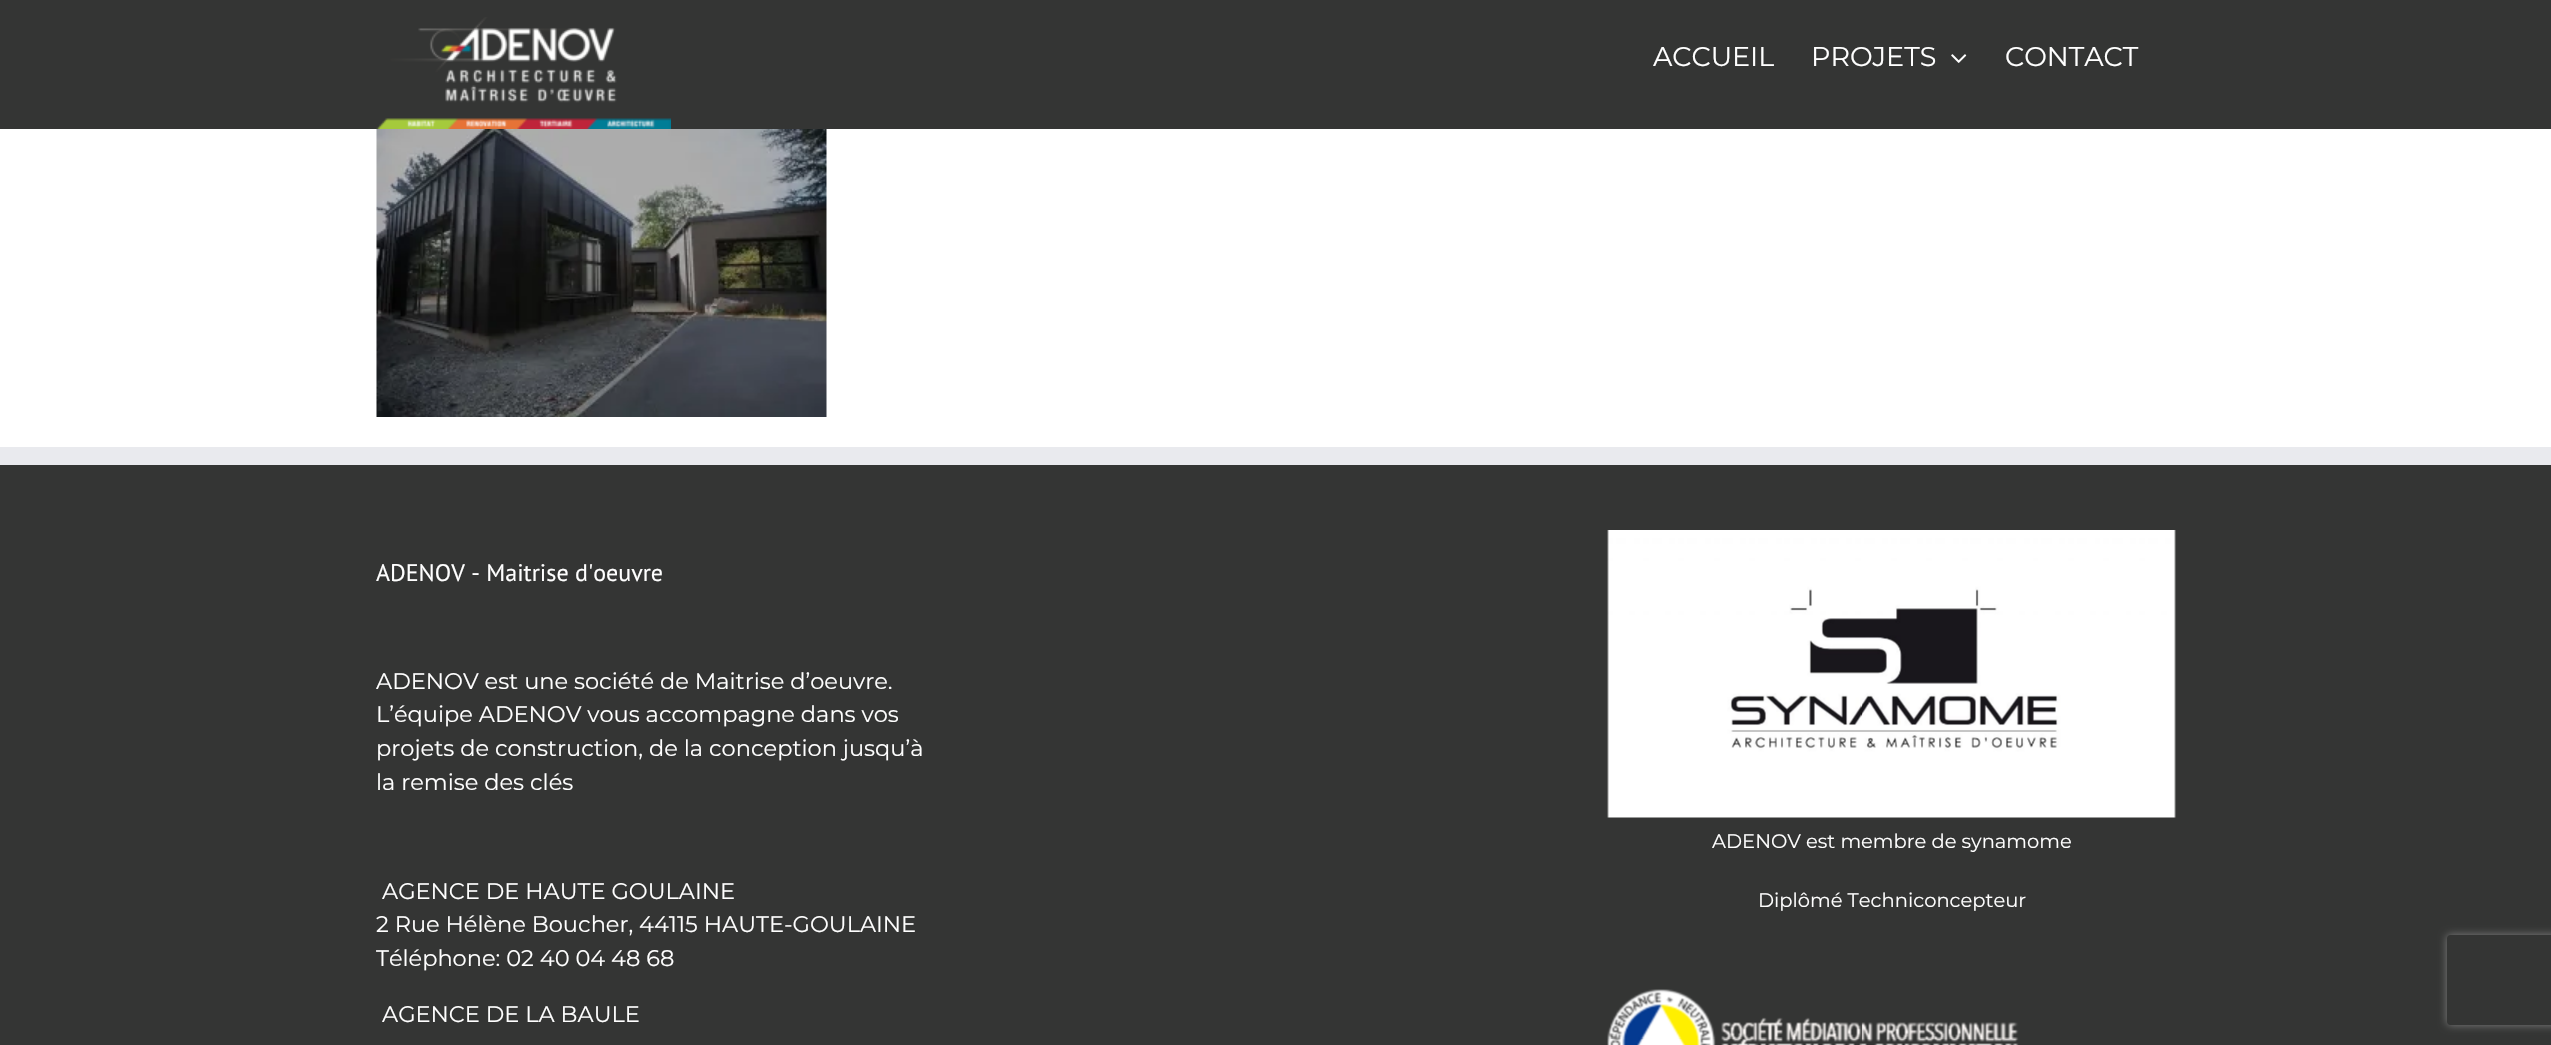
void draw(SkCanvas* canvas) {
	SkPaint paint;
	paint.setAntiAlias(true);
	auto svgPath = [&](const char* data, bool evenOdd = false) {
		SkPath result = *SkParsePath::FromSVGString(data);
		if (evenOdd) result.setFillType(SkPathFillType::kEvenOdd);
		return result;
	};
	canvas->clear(0xffffffff);
	paint.setColor(0xff343534);
	canvas->drawRect(SkRect::MakeXYWH(0, 0, 2551, 129), paint);
	canvas->drawImageRect(SkImages::DeferredFromEncodedData(SkData::MakeFromFileName("img1.png")), SkRect::MakeXYWH(376, 17, 295, 112), SkSamplingOptions());
	SkFont f1(fontMgr->matchFamilyStyle("Montserrat", SkFontStyle::Normal()), 27);
	f1.setSubpixel(true);
	paint.setColor(0xffffffff);
	canvas->drawString("ACCUEIL", 1653, 66, f1, paint);
	canvas->drawString("PROJETS", 1811, 66, f1, paint);
	canvas->drawImageRect(SkImages::DeferredFromEncodedData(SkData::MakeFromFileName("img2.png")), SkRect::MakeXYWH(1951, 54, 16, 9), SkSamplingOptions());
	canvas->drawString("CONTACT", 2005, 66, f1, paint);
	canvas->drawImageRect(SkImages::DeferredFromEncodedData(SkData::MakeFromFileName("img3.png")), SkRect::MakeXYWH(376, 129, 451, 288), SkSamplingOptions());
	paint.setColor(0xff343534);
	canvas->drawRect(SkRect::MakeXYWH(0, 465, 2551, 580), paint);
	paint.setColor(0xffe9eaee);
	canvas->drawRect(SkRect::MakeXYWH(0, 447, 2551, 18), paint);
	SkFont f2(fontMgr->matchFamilyStyle("PT Sans", SkFontStyle::Normal()), 24);
	f2.setSubpixel(true);
	paint.setColor(0xffffffff);
	canvas->drawString("ADENOV - Maitrise d'oeuvre", 376, 581, f2, paint);
	SkFont f3(fontMgr->matchFamilyStyle("Montserrat", SkFontStyle::Normal()), 22.5);
	f3.setSubpixel(true);
	canvas->drawString("ADENOV est une société de Maitrise d’oeuvre.", 376, 689, f3, paint);
	canvas->drawString("L’équipe ADENOV vous accompagne dans vos", 376, 722, f3, paint);
	canvas->drawString("projets de construction, de la conception jusqu’à", 376, 756, f3, paint);
	canvas->drawString("la remise des clés", 376, 790, f3, paint);
	canvas->drawString("AGENCE DE HAUTE GOULAINE", 382, 899, f3, paint);
	canvas->drawString("2 Rue Hélène Boucher, 44115 HAUTE-GOULAINE", 376, 932, f3, paint);
	canvas->drawString("Téléphone: 02 40 04 48 68", 376, 966, f3, paint);
	canvas->drawString("AGENCE DE LA BAULE", 382, 1022, f3, paint);
	canvas->drawImageRect(SkImages::DeferredFromEncodedData(SkData::MakeFromFileName("img4.png")), SkRect::MakeXYWH(1607, 530, 569, 288), SkSamplingOptions());
	SkFont f4(fontMgr->matchFamilyStyle("Montserrat", SkFontStyle::Normal()), 19.5);
	f4.setSubpixel(true);
	canvas->drawString("ADENOV est membre de synamome", 1712, 848, f4, paint);
	canvas->drawString("Diplômé Techniconcepteur", 1758, 907, f4, paint);
	canvas->drawImageRect(SkImages::DeferredFromEncodedData(SkData::MakeFromFileName("img5.png")), SkRect::MakeXYWH(1607, 989, 412, 56), SkSamplingOptions());
	canvas->save();
	canvas->clipPath(svgPath("M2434 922H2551V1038H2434ZM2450 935H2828C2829.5 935 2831 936.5 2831 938V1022C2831 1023.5 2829.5 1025 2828 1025H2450C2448.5 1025 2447 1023.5 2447 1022V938C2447 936.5 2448.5 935 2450 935Z", true), true);
	paint.setColor(0xff808080);
	paint.setMaskFilter(SkMaskFilter::MakeBlur(kNormal_SkBlurStyle, 4));
	canvas->drawRoundRect(SkRect::MakeXYWH(2447, 935, 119, 90), 3, 3, paint);
	paint.setMaskFilter(nullptr);
	canvas->restore();
}
